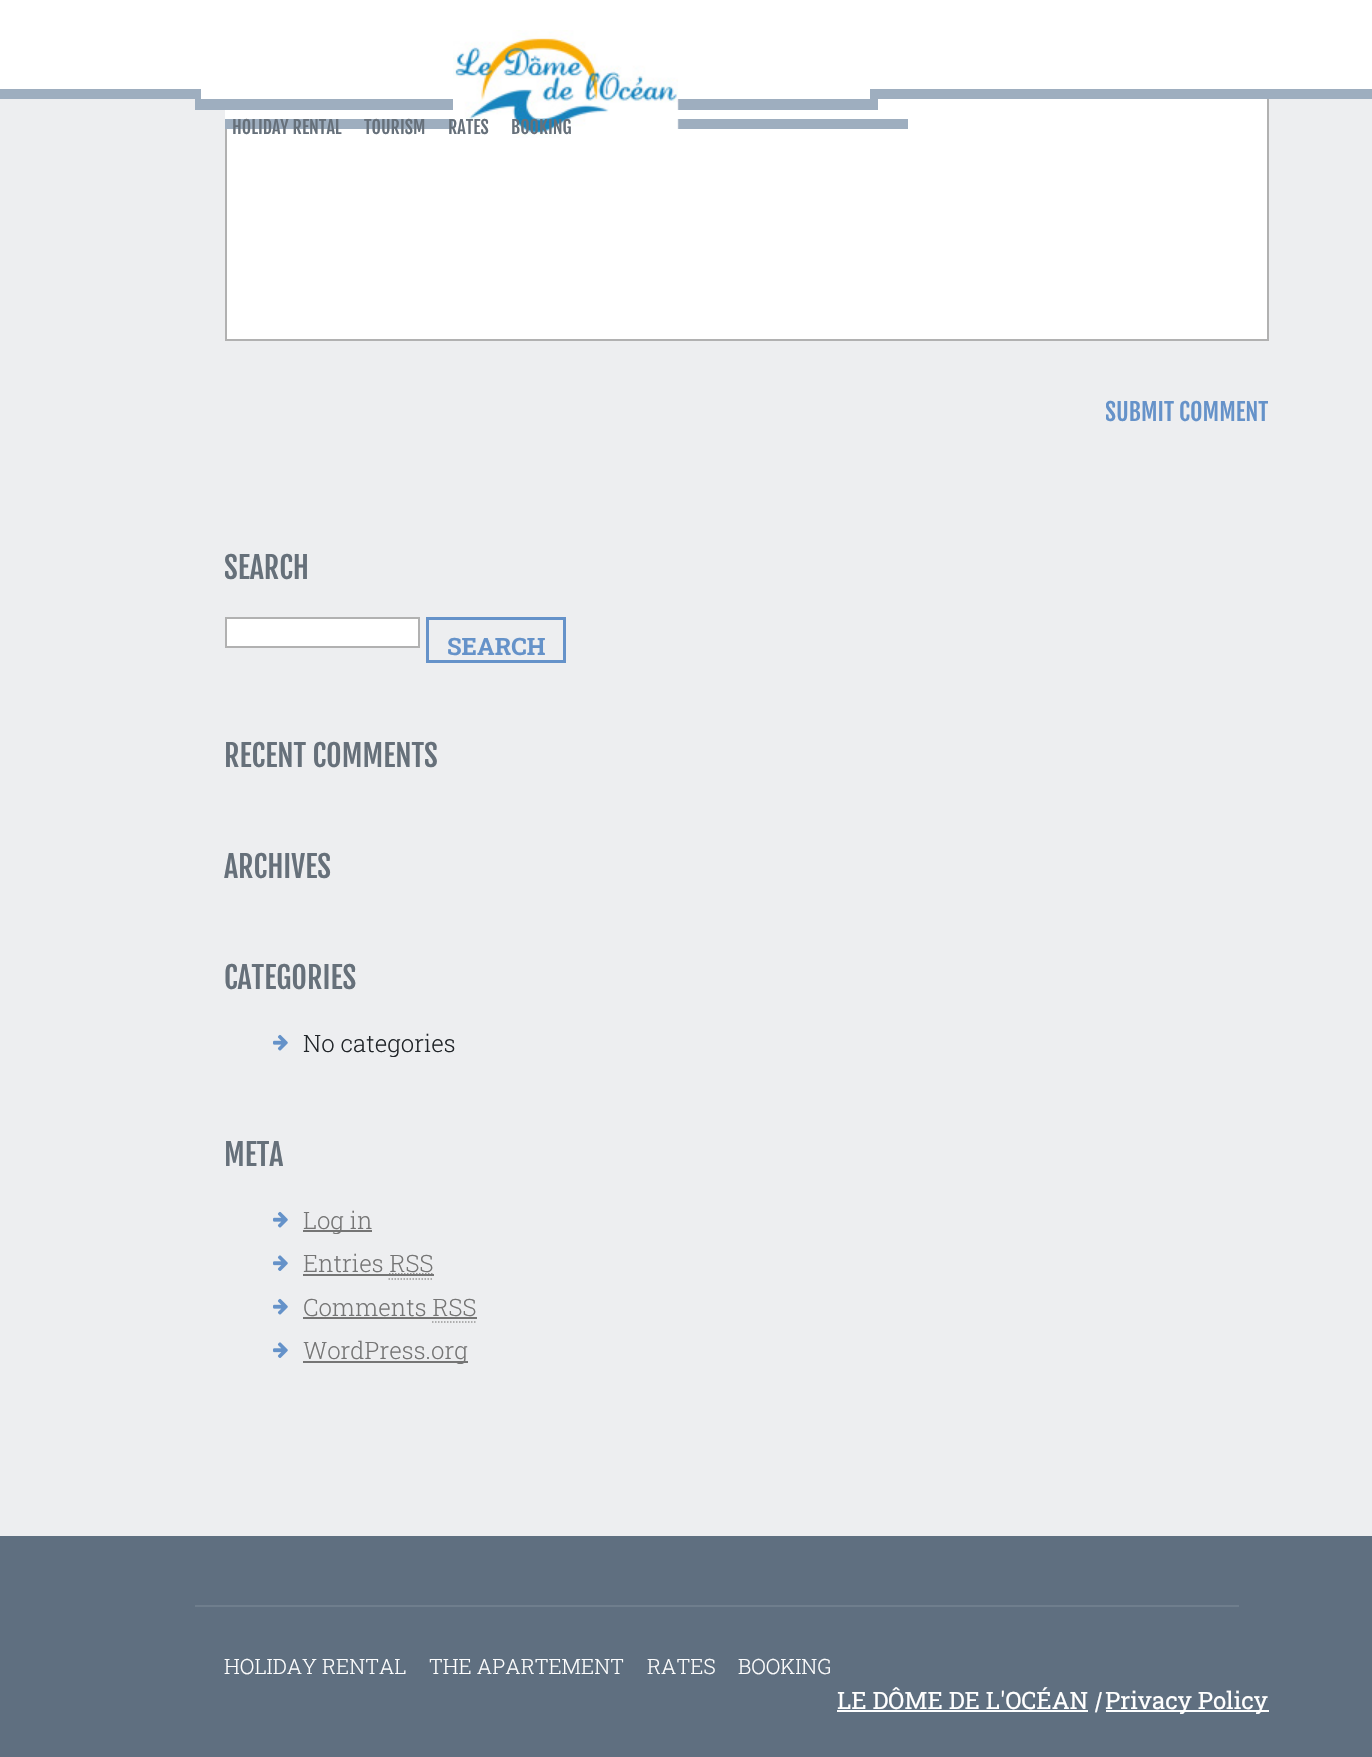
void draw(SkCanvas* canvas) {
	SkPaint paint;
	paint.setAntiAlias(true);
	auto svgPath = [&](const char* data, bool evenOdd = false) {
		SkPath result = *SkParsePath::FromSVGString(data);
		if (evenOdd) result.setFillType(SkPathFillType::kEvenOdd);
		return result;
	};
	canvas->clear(0xffedeef0);
	paint.setColor(0xffffffff);
	canvas->drawRect(SkRect::MakeXYWH(227, 99, 1040, 240), paint);
	paint.setStroke(true);
	paint.setStrokeWidth(2);
	paint.setColor(0xffb1b1b1);
	canvas->drawRect(SkRect::MakeXYWH(226, 72, 1042, 268), paint);
	paint.setStroke(false);
	paint.setColor(0xffffffff);
	canvas->drawRect(SkRect::MakeXYWH(201, 0, 669, 99), paint);
	paint.setColor(0xff9eaebf);
	canvas->drawRect(SkRect::MakeXYWH(195, 99, 683, 11), paint);
	paint.setColor(0xffffffff);
	canvas->drawRect(SkRect::MakeXYWH(0, 0, 201, 89), paint);
	paint.setColor(0xff9eaebf);
	canvas->drawRect(SkRect::MakeXYWH(0, 89, 201, 10), paint);
	paint.setColor(0xffffffff);
	canvas->drawRect(SkRect::MakeXYWH(870, 0, 502, 89), paint);
	paint.setColor(0xff9eaebf);
	canvas->drawRect(SkRect::MakeXYWH(870, 89, 502, 10), paint);
	canvas->drawRect(SkRect::MakeXYWH(225, 119, 683, 10), paint);
	canvas->drawImageRect(SkImages::DeferredFromEncodedData(SkData::MakeFromFileName("img1.png")), SkRect::MakeXYWH(453, 30, 226, 108), SkSamplingOptions());
	paint.setColor(0xffffffff);
	canvas->drawRect(SkRect::MakeXYWH(225, 110, 2, 9), paint);
	SkFont f1(fontMgr->matchFamilyStyle("Fjalla One", SkFontStyle::Normal()), 18);
	f1.setSubpixel(true);
	paint.setColor(0xff66707a);
	canvas->drawString("HOLIDAY RENTAL", 232, 134, f1, paint);
	canvas->drawString("TOURISM", 364, 134, f1, paint);
	canvas->drawString("RATES", 448, 134, f1, paint);
	canvas->drawString("BOOKING", 511, 134, f1, paint);
	canvas->save();
	canvas->clipRect(SkRect::MakeXYWH(1106, 395, 163, 36));
	SkFont f2(fontMgr->matchFamilyStyle("Fjalla One", SkFontStyle::Normal()), 24);
	f2.setSubpixel(true);
	paint.setColor(0xff6592c9);
	canvas->drawString("SUBMIT COMMENT", 1105, 421, f2, paint);
	canvas->restore();
	SkFont f3(fontMgr->matchFamilyStyle("Fjalla One", SkFontStyle::Normal()), 30);
	f3.setSubpixel(true);
	paint.setColor(0xff66707a);
	canvas->drawString("SEARCH", 224, 579, f3, paint);
	paint.setColor(0xffffffff);
	canvas->drawRect(SkRect::MakeXYWH(226, 618, 193, 29), paint);
	paint.setStroke(true);
	paint.setColor(0xffb1b1b1);
	canvas->drawRect(SkRect::MakeXYWH(226, 618, 193, 29), paint);
	paint.setStrokeWidth(3);
	paint.setColor(0xff6592c9);
	canvas->drawRect(SkRect::MakeXYWH(427.5, 618.5, 137, 43), paint);
	SkFont f4(fontMgr->matchFamilyStyle("Roboto Slab", SkFontStyle::Bold()), 24);
	f4.setSubpixel(true);
	paint.setStroke(false);
	canvas->drawString("SEARCH", 447, 655, f4, paint);
	paint.setColor(0xff66707a);
	canvas->drawString("RECENT COMMENTS", 224, 767, f3, paint);
	canvas->drawString("ARCHIVES", 224, 878, f3, paint);
	canvas->drawString("CATEGORIES", 224, 989, f3, paint);
	canvas->drawImageRect(SkImages::DeferredFromEncodedData(SkData::MakeFromFileName("img2.png")), SkRect::MakeXYWH(273, 1034, 15, 17), SkSamplingOptions());
	SkFont f5(fontMgr->matchFamilyStyle("Roboto Slab", SkFontStyle(300, SkFontStyle::kNormal_Width, SkFontStyle::kUpright_Slant)), 24);
	f5.setSubpixel(true);
	paint.setColor(0xff212529);
	canvas->drawString("No categories", 303, 1052, f5, paint);
	paint.setColor(0xff66707a);
	canvas->drawString("META", 224, 1166, f3, paint);
	canvas->drawImageRect(SkImages::DeferredFromEncodedData(SkData::MakeFromFileName("img2.png")), SkRect::MakeXYWH(273, 1211, 15, 17), SkSamplingOptions());
	paint.setColor(0xff757575);
	canvas->drawRect(SkRect::MakeXYWH(303, 1230, 69, 2), paint);
	canvas->drawString("Log in", 303, 1229, f5, paint);
	canvas->drawImageRect(SkImages::DeferredFromEncodedData(SkData::MakeFromFileName("img3.png")), SkRect::MakeXYWH(273, 1255, 15, 16), SkSamplingOptions());
	canvas->drawString("Entries RSS", 303, 1272, f5, paint);
	canvas->drawRect(SkRect::MakeXYWH(303, 1274, 86, 2), paint);
	paint.setStroke(true);
	paint.setStrokeWidth(1.5);
	paint.setColor(0xff999999);
	paint.setPathEffect(SkDashPathEffect::Make({{1.5f, 1.5f}}, 0));
	canvas->drawPath(svgPath("M388.5 1279H433.5"), paint);
	paint.setPathEffect(nullptr);
	paint.setColor(0xff757575);
	paint.setPathEffect(SkDashPathEffect::Make({{1.5f, 1.5f}}, 0));
	canvas->drawPath(svgPath("M389 1274H433.5"), paint);
	paint.setPathEffect(nullptr);
	paint.setStroke(false);
	canvas->drawRect(SkRect::MakeXYWH(389, 1274, 45, 2), paint);
	canvas->drawImageRect(SkImages::DeferredFromEncodedData(SkData::MakeFromFileName("img2.png")), SkRect::MakeXYWH(273, 1298, 15, 17), SkSamplingOptions());
	canvas->drawString("Comments RSS", 303, 1316, f5, paint);
	canvas->drawRect(SkRect::MakeXYWH(303, 1317, 174, 2), paint);
	paint.setStroke(true);
	paint.setColor(0xff999999);
	paint.setPathEffect(SkDashPathEffect::Make({{1.5f, 1.5f}}, 0));
	canvas->drawPath(svgPath("M432 1322H477"), paint);
	paint.setPathEffect(nullptr);
	canvas->drawImageRect(SkImages::DeferredFromEncodedData(SkData::MakeFromFileName("img3.png")), SkRect::MakeXYWH(273, 1342, 15, 16), SkSamplingOptions());
	paint.setStroke(false);
	paint.setColor(0xff757575);
	canvas->drawRect(SkRect::MakeXYWH(303, 1361, 165, 2), paint);
	canvas->drawString("WordPress.org", 303, 1359, f5, paint);
	paint.setColor(0xff5f6f80);
	canvas->drawRect(SkRect::MakeXYWH(0, 1536, 1372, 221), paint);
	paint.setColor(0xff6f7e8d);
	canvas->drawRect(SkRect::MakeXYWH(195, 1605, 1044, 2), paint);
	SkFont f6(fontMgr->matchFamilyStyle("Roboto Slab", SkFontStyle(300, SkFontStyle::kNormal_Width, SkFontStyle::kUpright_Slant)), 21);
	f6.setSubpixel(true);
	paint.setColor(0xffffffff);
	canvas->drawString("HOLIDAY RENTAL", 224, 1674, f6, paint);
	canvas->drawString("THE APARTEMENT", 429, 1674, f6, paint);
	canvas->drawString("RATES", 647, 1674, f6, paint);
	canvas->drawString("BOOKING", 738, 1674, f6, paint);
	SkFont f7(fontMgr->matchFamilyStyle("Roboto Slab", SkFontStyle::Normal()), 24);
	f7.setSubpixel(true);
	canvas->drawString("LE DÔME DE L'OCÉAN", 837, 1709, f7, paint);
	canvas->drawRect(SkRect::MakeXYWH(837, 1710, 251, 2), paint);
	SkFont f8(fontMgr->matchFamilyStyle("Roboto Slab", SkFontStyle::Italic()), 24);
	f8.setSubpixel(true);
	canvas->drawString("|", 1094, 1709, f8, paint);
	canvas->drawRect(SkRect::MakeXYWH(1106, 1710, 163, 2), paint);
	canvas->drawString("Privacy Policy", 1105, 1709, f7, paint);
}
